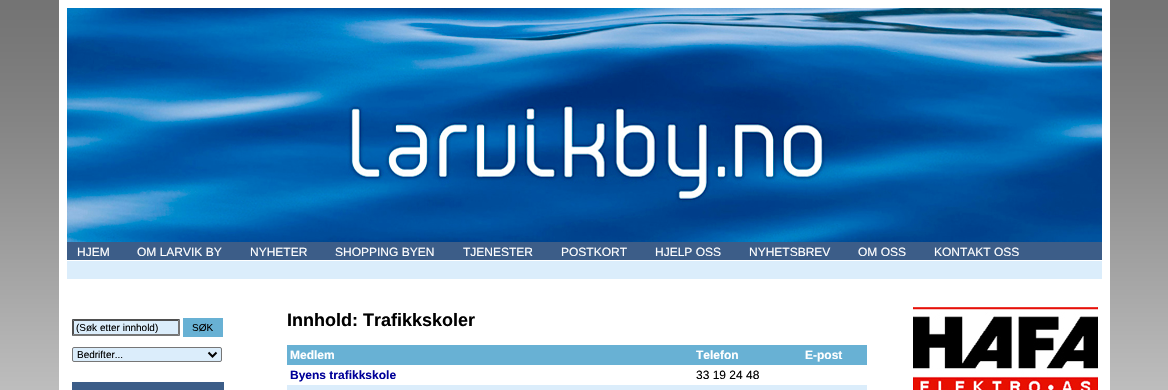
void draw(SkCanvas* canvas) {
	SkPaint paint;
	paint.setAntiAlias(true);
	auto svgPath = [&](const char* data, bool evenOdd = false) {
		SkPath result = *SkParsePath::FromSVGString(data);
		if (evenOdd) result.setFillType(SkPathFillType::kEvenOdd);
		return result;
	};
	canvas->clear(0xffffffff);
	canvas->drawImageRect(SkImages::DeferredFromEncodedData(SkData::MakeFromFileName("img1.png")), SkRect::MakeXYWH(0, 0, 1168, 390), SkSamplingOptions());
	paint.setStroke(true);
	paint.setStrokeWidth(8);
	paint.setColor(0xffffffff);
	canvas->drawRect(SkRect::MakeXYWH(63, 4, 1043, 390), paint);
	canvas->drawImageRect(SkImages::DeferredFromEncodedData(SkData::MakeFromFileName("img2.png")), SkRect::MakeXYWH(67, 8, 1035, 234), SkSamplingOptions());
	paint.setStroke(false);
	canvas->drawRect(SkRect::MakeXYWH(67, 260, 1035, 1), paint);
	paint.setColor(0xff3c5d88);
	canvas->drawRect(SkRect::MakeXYWH(67, 242, 1035, 18), paint);
	SkFont f1(fontMgr->matchFamilyStyle("Liberation Sans", SkFontStyle::Normal()), 12);
	f1.setSubpixel(true);
	paint.setColor(0xffffffff);
	canvas->drawString("HJEM", 77, 256, f1, paint);
	canvas->drawString("OM LARVIK BY", 137, 256, f1, paint);
	canvas->drawString("NYHETER", 250, 256, f1, paint);
	canvas->drawString("SHOPPING BYEN", 335, 256, f1, paint);
	canvas->drawString("TJENESTER", 463, 256, f1, paint);
	canvas->drawString("POSTKORT", 561, 256, f1, paint);
	canvas->drawString("HJELP OSS", 655, 256, f1, paint);
	canvas->drawString("NYHETSBREV", 749, 256, f1, paint);
	canvas->drawString("OM OSS", 858, 256, f1, paint);
	canvas->drawString("KONTAKT OSS", 934, 256, f1, paint);
	canvas->drawRect(SkRect::MakeXYWH(67, 279, 1035, 111), paint);
	paint.setColor(0xffdbedfb);
	canvas->drawRect(SkRect::MakeXYWH(67, 261, 1035, 18), paint);
	canvas->drawRect(SkRect::MakeXYWH(72, 319, 108, 17), paint);
	paint.setColor(0xff4f4f4f);
	canvas->drawPath(svgPath("M72 319H180L178 321H74Z"), paint);
	paint.setColor(0xff767676);
	canvas->drawPath(svgPath("M180 319V336L178 334V321Z"), paint);
	canvas->drawPath(svgPath("M180 336H72L74 334H178Z"), paint);
	paint.setColor(0xff4f4f4f);
	canvas->drawPath(svgPath("M72 336V319L74 321V334Z"), paint);
	SkFont f2(fontMgr->matchFamilyStyle("Liberation Sans", SkFontStyle::Normal()), 10);
	f2.setSubpixel(true);
	paint.setColor(0xff000000);
	canvas->drawString("(Søk etter innhold)", 76, 331, f2, paint);
	paint.setColor(0xff68b1d4);
	canvas->drawRect(SkRect::MakeXYWH(183, 318, 40, 19), paint);
	paint.setColor(0xff000000);
	canvas->drawString("SØK", 192, 331, f2, paint);
	paint.setColor(0xffdbedfb);
	canvas->drawRoundRect(SkRect::MakeXYWH(72.5, 347.5, 149, 14), 1.5, 1.5, paint);
	paint.setStroke(true);
	paint.setStrokeWidth(1);
	paint.setColor(0xff767676);
	canvas->drawRoundRect(SkRect::MakeXYWH(72.5, 347.5, 149, 14), 1.5, 1.5, paint);
	paint.setStrokeWidth(2);
	paint.setColor(0xff000000);
	canvas->drawPath(svgPath("M208.5 352.5L212.5 356.5L216.5 352.5"), paint);
	paint.setStroke(false);
	canvas->drawString("Bedrifter...", 77, 358, f2, paint);
	paint.setColor(0xff3c5d88);
	canvas->drawRect(SkRect::MakeXYWH(72, 382, 152, 8), paint);
	SkFont f3(fontMgr->matchFamilyStyle("Liberation Sans", SkFontStyle::Bold()), 18);
	f3.setSubpixel(true);
	paint.setColor(0xff000000);
	canvas->drawString("Innhold: Trafikkskoler", 287, 326, f3, paint);
	paint.setColor(0xff68b1d4);
	canvas->drawRect(SkRect::MakeXYWH(287, 345, 580, 20), paint);
	SkFont f4(fontMgr->matchFamilyStyle("Liberation Sans", SkFontStyle::Bold()), 12);
	f4.setSubpixel(true);
	paint.setColor(0xffffffff);
	canvas->drawString("Medlem", 290, 359, f4, paint);
	canvas->drawString("Telefon", 696, 359, f4, paint);
	canvas->drawString("E-post", 805, 359, f4, paint);
	paint.setColor(0xff000099);
	canvas->drawString("Byens trafikkskole", 290, 379, f4, paint);
	paint.setColor(0xff000000);
	canvas->drawString("33 19 24 48", 696, 379, f1, paint);
	paint.setColor(0xffdbedfb);
	canvas->drawRect(SkRect::MakeXYWH(287, 385, 580, 5), paint);
	canvas->drawImageRect(SkImages::DeferredFromEncodedData(SkData::MakeFromFileName("img3.png")), SkRect::MakeXYWH(913, 305, 185, 85), SkSamplingOptions());
}
